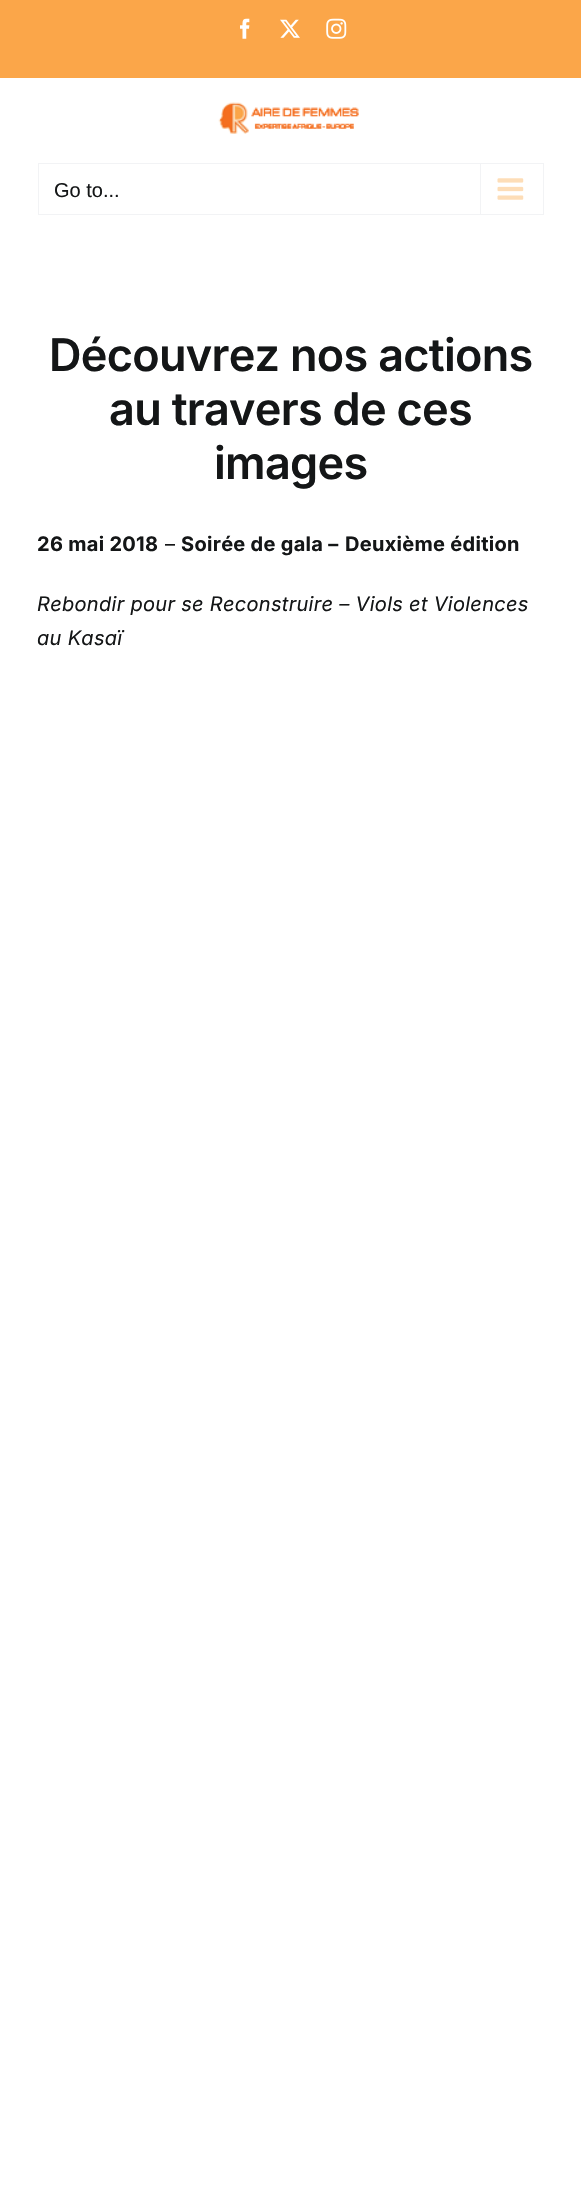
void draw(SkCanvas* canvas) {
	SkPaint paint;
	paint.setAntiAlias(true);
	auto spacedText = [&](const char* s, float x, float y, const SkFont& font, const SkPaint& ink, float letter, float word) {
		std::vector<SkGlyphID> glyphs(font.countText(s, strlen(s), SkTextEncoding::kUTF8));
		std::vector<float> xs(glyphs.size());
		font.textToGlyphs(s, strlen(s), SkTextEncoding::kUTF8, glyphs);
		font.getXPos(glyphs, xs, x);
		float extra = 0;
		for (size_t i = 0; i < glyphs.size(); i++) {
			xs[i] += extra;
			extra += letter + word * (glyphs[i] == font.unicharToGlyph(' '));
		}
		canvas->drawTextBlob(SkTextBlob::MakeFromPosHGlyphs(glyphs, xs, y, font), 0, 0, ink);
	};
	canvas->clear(0xffffffff);
	paint.setColor(0xfffba649);
	canvas->drawRect(SkRect::MakeXYWH(0, 0, 581, 78), paint);
	canvas->drawImageRect(SkImages::DeferredFromEncodedData(SkData::MakeFromFileName("img1.png")), SkRect::MakeXYWH(240, 18, 10, 21), SkSamplingOptions());
	canvas->drawImageRect(SkImages::DeferredFromEncodedData(SkData::MakeFromFileName("img2.png")), SkRect::MakeXYWH(280, 19, 20, 19), SkSamplingOptions());
	canvas->drawImageRect(SkImages::DeferredFromEncodedData(SkData::MakeFromFileName("img3.png")), SkRect::MakeXYWH(326, 18, 21, 21), SkSamplingOptions());
	canvas->drawImageRect(SkImages::DeferredFromEncodedData(SkData::MakeFromFileName("img4.png")), SkRect::MakeXYWH(218, 102, 141, 32), SkSamplingOptions());
	paint.setStroke(true);
	paint.setStrokeWidth(1);
	paint.setColor(0xfff2f3f5);
	canvas->drawRect(SkRect::MakeXYWH(38.5, 163.5, 505, 51), paint);
	SkFont f1(fontMgr->matchFamilyStyle("Liberation Sans", SkFontStyle::Normal()), 20);
	f1.setSubpixel(true);
	paint.setStroke(false);
	paint.setColor(0xff141617);
	canvas->drawString("Go to...", 54, 197, f1, paint);
	paint.setColor(0xfff2f3f5);
	canvas->drawRect(SkRect::MakeXYWH(480, 164, 1, 50), paint);
	canvas->drawImageRect(SkImages::DeferredFromEncodedData(SkData::MakeFromFileName("img5.png")), SkRect::MakeXYWH(497, 178, 27, 22), SkSamplingOptions());
	SkFont f2(fontMgr->matchFamilyStyle("Inter", SkFontStyle(600, SkFontStyle::kNormal_Width, SkFontStyle::kUpright_Slant)), 45);
	f2.setSubpixel(true);
	paint.setColor(0xff141617);
	spacedText("Découvrez nos actions", 49, 371, f2, paint, -0.7, 0);
	spacedText("au travers de ces", 109, 425, f2, paint, -0.7, 0);
	spacedText("images", 214, 479, f2, paint, -0.7, 0);
	SkFont f3(fontMgr->matchFamilyStyle("Inter", SkFontStyle::Bold()), 20);
	f3.setSubpixel(true);
	spacedText("26 mai 2018", 37, 551, f3, paint, 0.3, 0);
	SkFont f4(fontMgr->matchFamilyStyle("Inter", SkFontStyle::Normal()), 20);
	f4.setSubpixel(true);
	spacedText("–", 165, 551, f4, paint, 0.3, 0);
	spacedText("Soirée de gala –", 181, 551, f3, paint, 0.3, 0);
	spacedText("Deuxième édition", 345, 551, f3, paint, 0.3, 0);
	SkFont f5(fontMgr->matchFamilyStyle("Inter", SkFontStyle::Italic()), 20);
	f5.setSubpixel(true);
	spacedText("Rebondir pour se Reconstruire – Viols et Violences", 37, 611, f5, paint, 0.3, 0);
	spacedText("au Kasaï", 37, 645, f5, paint, 0.3, 0);
}
